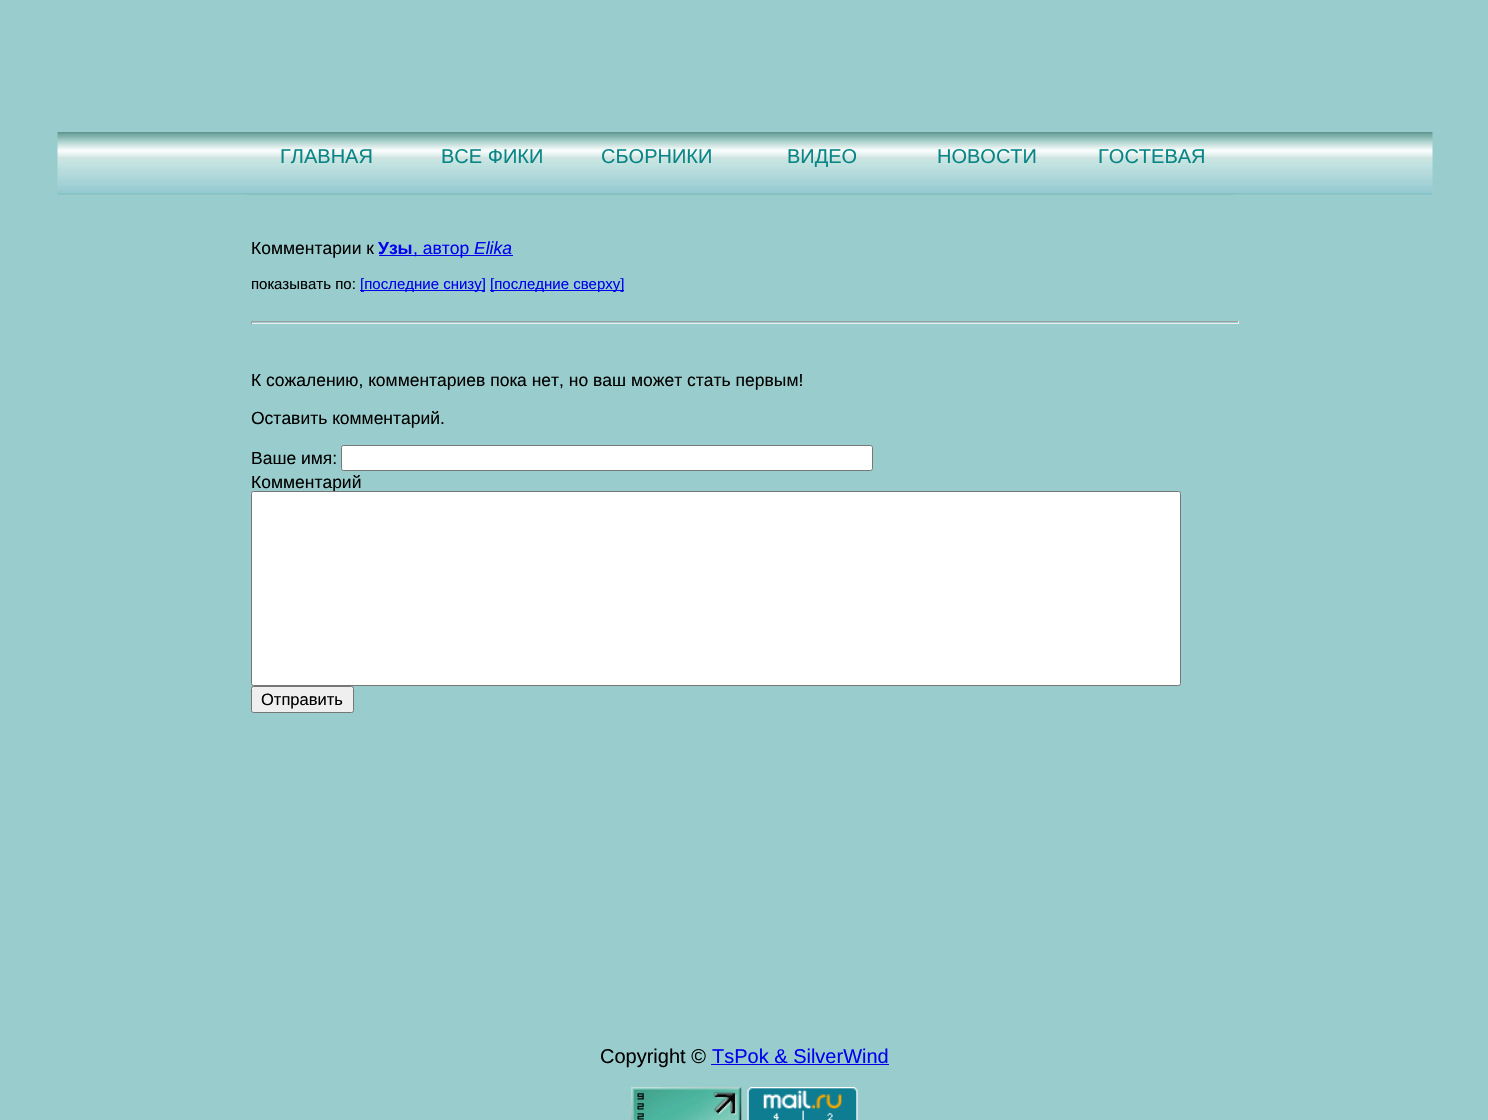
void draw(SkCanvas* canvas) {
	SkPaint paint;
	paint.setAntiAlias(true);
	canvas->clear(0xff99cccc);
	canvas->drawImageRect(SkImages::DeferredFromEncodedData(SkData::MakeFromFileName("img1.png")), SkRect::MakeXYWH(57, 132, 1376, 63), SkSamplingOptions());
	paint.setColor(0xff88c1c4);
	canvas->drawRect(SkRect::MakeXYWH(245, 194, 990, 1), paint);
	SkFont f1(fontMgr->matchFamilyStyle("Liberation Sans", SkFontStyle::Normal()), 20);
	f1.setSubpixel(true);
	paint.setColor(0xff098586);
	canvas->drawString("ГЛАВНАЯ", 280, 163, f1, paint);
	canvas->drawString("ВСЕ ФИКИ", 441, 163, f1, paint);
	canvas->drawString("СБОРНИКИ", 601, 163, f1, paint);
	canvas->drawString("ВИДЕО", 787, 163, f1, paint);
	canvas->drawString("НОВОСТИ", 937, 163, f1, paint);
	canvas->drawString("ГОСТЕВАЯ", 1098, 163, f1, paint);
	SkFont f2(fontMgr->matchFamilyStyle("Liberation Sans", SkFontStyle::Normal()), 17.5);
	f2.setSubpixel(true);
	paint.setColor(0xff000000);
	canvas->drawString("Комментарии к", 251, 254, f2, paint);
	SkFont f3(fontMgr->matchFamilyStyle("Liberation Sans", SkFontStyle::Bold()), 17.5);
	f3.setSubpixel(true);
	paint.setColor(0xff0000ee);
	canvas->drawString("Узы", 378, 254, f3, paint);
	canvas->drawRect(SkRect::MakeXYWH(379, 255, 134, 1), paint);
	canvas->drawString(", автор", 413, 254, f2, paint);
	SkFont f4(fontMgr->matchFamilyStyle("Liberation Sans", SkFontStyle::Italic()), 17.5);
	f4.setSubpixel(true);
	canvas->drawString("Elika", 474, 254, f4, paint);
	SkFont f5(fontMgr->matchFamilyStyle("Liberation Sans", SkFontStyle::Normal()), 15);
	f5.setSubpixel(true);
	paint.setColor(0xff000000);
	canvas->drawString("показывать по:", 251, 289, f5, paint);
	paint.setColor(0xff0000ee);
	canvas->drawRect(SkRect::MakeXYWH(360, 290, 125, 1), paint);
	canvas->drawString("[последние снизу]", 360, 289, f5, paint);
	canvas->drawRect(SkRect::MakeXYWH(490, 290, 134, 1), paint);
	canvas->drawString("[последние сверху]", 490, 289, f5, paint);
	paint.setColor(0xff9f9f9f);
	canvas->drawRect(SkRect::MakeXYWH(251, 321, 988, 1), paint);
	paint.setColor(0xffeeeeee);
	canvas->drawRect(SkRect::MakeXYWH(1238, 321, 1, 3), paint);
	canvas->drawRect(SkRect::MakeXYWH(251, 323, 988, 1), paint);
	paint.setColor(0xff9f9f9f);
	canvas->drawRect(SkRect::MakeXYWH(251, 321, 1, 3), paint);
	paint.setColor(0xff000000);
	canvas->drawString("К сожалению, комментариев пока нет, но ваш может стать первым!", 251, 386, f2, paint);
	canvas->drawString("Оставить комментарий.", 251, 424, f2, paint);
	canvas->drawString("Ваше имя:", 251, 464, f2, paint);
	paint.setColor(0xffffffff);
	canvas->drawRoundRect(SkRect::MakeXYWH(341.5, 445.5, 531, 25), 2, 2, paint);
	paint.setStroke(true);
	paint.setStrokeWidth(1);
	paint.setColor(0xff767676);
	canvas->drawRoundRect(SkRect::MakeXYWH(341.5, 445.5, 531, 25), 2, 2, paint);
	paint.setStroke(false);
	paint.setColor(0xff000000);
	canvas->drawString("Комментарий", 251, 488, f2, paint);
	paint.setColor(0xffffffff);
	canvas->drawRoundRect(SkRect::MakeXYWH(251.5, 491.5, 929, 194), 2, 2, paint);
	paint.setStroke(true);
	paint.setColor(0xff767676);
	canvas->drawRoundRect(SkRect::MakeXYWH(251.5, 491.5, 929, 194), 2, 2, paint);
	paint.setStroke(false);
	paint.setColor(0xffefefef);
	canvas->drawRoundRect(SkRect::MakeXYWH(251.5, 686.5, 102, 26), 2, 2, paint);
	paint.setStroke(true);
	paint.setColor(0xff767676);
	canvas->drawRoundRect(SkRect::MakeXYWH(251.5, 686.5, 102, 26), 2, 2, paint);
	SkFont f6(fontMgr->matchFamilyStyle("Liberation Sans", SkFontStyle::Normal()), 16.5);
	f6.setSubpixel(true);
	paint.setStroke(false);
	paint.setColor(0xff000000);
	canvas->drawString("Отправить", 261, 705, f6, paint);
	canvas->drawString("Copyright ©", 600, 1063, f1, paint);
	paint.setColor(0xff0000ee);
	canvas->drawString("TsPok & SilverWind", 712, 1063, f1, paint);
	canvas->drawRect(SkRect::MakeXYWH(711, 1064, 178, 1), paint);
	canvas->drawImageRect(SkImages::DeferredFromEncodedData(SkData::MakeFromFileName("img2.png")), SkRect::MakeXYWH(631, 1087, 111, 33), SkSamplingOptions());
	canvas->drawImageRect(SkImages::DeferredFromEncodedData(SkData::MakeFromFileName("img3.png")), SkRect::MakeXYWH(747, 1087, 111, 33), SkSamplingOptions());
}
